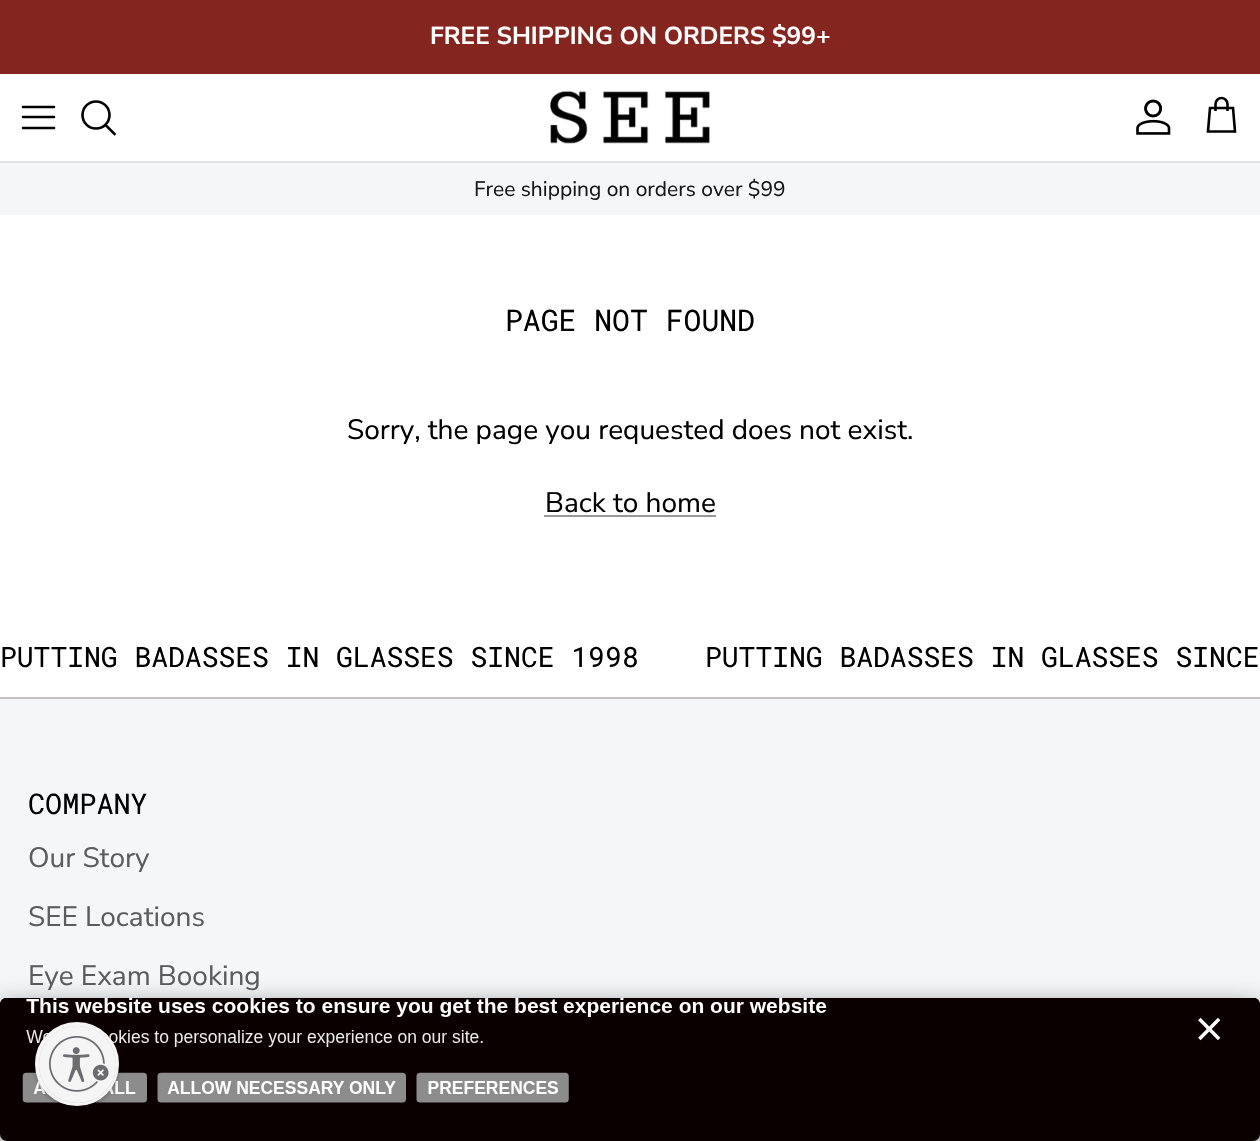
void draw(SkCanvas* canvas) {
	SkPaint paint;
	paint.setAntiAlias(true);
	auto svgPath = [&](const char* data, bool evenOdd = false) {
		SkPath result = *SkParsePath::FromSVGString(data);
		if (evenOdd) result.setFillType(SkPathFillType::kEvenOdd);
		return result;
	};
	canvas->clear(0xffffffff);
	paint.setColor(0xff842520);
	canvas->drawRect(SkRect::MakeXYWH(0, 0, 1260, 74), paint);
	SkFont f1(fontMgr->matchFamilyStyle("Nunito Sans", SkFontStyle::Bold()), 24.5);
	f1.setSubpixel(true);
	paint.setColor(0xffffffff);
	canvas->drawString("FREE SHIPPING ON ORDERS $99+", 430, 44, f1, paint);
	paint.setColor(0xffdfe3e8);
	canvas->drawRect(SkRect::MakeXYWH(0, 161, 1260, 2), paint);
	paint.setStroke(true);
	paint.setStrokeWidth(2.6);
	paint.setStrokeCap(SkPaint::kRound_Cap);
	paint.setStrokeJoin(SkPaint::kRound_Join);
	paint.setColor(0xff000000);
	canvas->drawPath(svgPath("M23 117H54M23 107H54M23 128H54"), paint);
	paint.setStrokeCap(SkPaint::kButt_Cap);
	paint.setStrokeJoin(SkPaint::kMiter_Join);
	canvas->drawCircle(96, 115, 13.5, paint);
	paint.setStrokeCap(SkPaint::kSquare_Cap);
	canvas->drawPath(svgPath("M106.5 126L114.5 134"), paint);
	canvas->drawImageRect(SkImages::DeferredFromEncodedData(SkData::MakeFromFileName("img1.png")), SkRect::MakeXYWH(550, 91, 160, 53), SkSamplingOptions());
	canvas->drawImageRect(SkImages::DeferredFromEncodedData(SkData::MakeFromFileName("img2.png")), SkRect::MakeXYWH(1136, 99, 35, 36), SkSamplingOptions());
	paint.setStrokeCap(SkPaint::kButt_Cap);
	canvas->drawPath(svgPath("M1227.5 111V104C1227.5 100.5 1224.5 98 1221.5 98C1218.5 98 1215.5 100.5 1215.5 104V111M1210 108H1233L1235 131.5H1208Z"), paint);
	paint.setStroke(false);
	paint.setColor(0xfff4f6f8);
	canvas->drawRect(SkRect::MakeXYWH(0, 163, 1260, 52), paint);
	SkFont f2(fontMgr->matchFamilyStyle("Nunito Sans", SkFontStyle::Normal()), 21);
	f2.setSubpixel(true);
	paint.setColor(0xff171717);
	canvas->drawString("Free shipping on orders over $99", 474, 196, f2, paint);
	SkFont f3(fontMgr->matchFamilyStyle("Roboto Mono", SkFontStyle::Normal()), 29.75);
	f3.setSubpixel(true);
	paint.setColor(0xff000000);
	canvas->drawString("PAGE NOT FOUND", 505, 331, f3, paint);
	SkFont f4(fontMgr->matchFamilyStyle("Nunito Sans", SkFontStyle::Normal()), 28);
	f4.setSubpixel(true);
	canvas->drawString("Sorry, the page you requested does not exist.", 347, 439, f4, paint);
	canvas->drawString("Back to home", 545, 512, f4, paint);
	paint.setColor(0xff999999);
	canvas->drawRect(SkRect::MakeXYWH(544, 515, 172, 2), paint);
	SkFont f5(fontMgr->matchFamilyStyle("Roboto Mono", SkFontStyle::Normal()), 28);
	f5.setSubpixel(true);
	paint.setColor(0xff000000);
	canvas->drawString("PUTTING BADASSES IN GLASSES SINCE 1998", 0, 667, f5, paint);
	canvas->drawString("PUTTING BADASSES IN GLASSES SINCE", 705, 667, f5, paint);
	paint.setColor(0xfff4f6f8);
	canvas->drawRect(SkRect::MakeXYWH(0, 699, 1260, 442), paint);
	paint.setColor(0xffc6c2c2);
	canvas->drawRect(SkRect::MakeXYWH(0, 697, 1260, 2), paint);
	SkFont f6(fontMgr->matchFamilyStyle("Roboto Mono", SkFontStyle::Normal()), 28.5);
	f6.setSubpixel(true);
	paint.setColor(0xff000000);
	canvas->drawString("COMPANY", 28, 814, f6, paint);
	paint.setColor(0xff5c5c5c);
	canvas->drawString("Our Story", 28, 867, f4, paint);
	canvas->drawString("SEE Locations", 28, 926, f4, paint);
	canvas->drawString("Eye Exam Booking", 28, 985, f4, paint);
	paint.setColor(0x80000000);
	paint.setMaskFilter(SkMaskFilter::MakeBlur(kNormal_SkBlurStyle, 13));
	canvas->drawRoundRect(SkRect::MakeXYWH(0, 1006, 1260, 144), 7, 7, paint);
	paint.setMaskFilter(nullptr);
	paint.setColor(0xff0a0000);
	canvas->drawRoundRect(SkRect::MakeXYWH(0, 998, 1260, 143), 7, 7, paint);
	canvas->drawImageRect(SkImages::DeferredFromEncodedData(SkData::MakeFromFileName("img3.png")), SkRect::MakeXYWH(0, 998, 1260, 105), SkSamplingOptions());
	paint.setColor(0x3d000000);
	paint.setMaskFilter(SkMaskFilter::MakeBlur(kNormal_SkBlurStyle, 2));
	canvas->drawRoundRect(SkRect::MakeXYWH(35, 1024, 84, 84), 42, 42, paint);
	paint.setMaskFilter(nullptr);
	paint.setColor(0xffebebf0);
	canvas->drawCircle(77, 1064, 40, paint);
	paint.setStroke(true);
	paint.setStrokeWidth(4);
	paint.setColor(0xfff5f5f5);
	canvas->drawCircle(77, 1064, 40, paint);
	canvas->save();
	canvas->clipPath(svgPath("M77.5 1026C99 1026 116 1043 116 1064.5C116 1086 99 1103 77.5 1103C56 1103 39 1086 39 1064.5C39 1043 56 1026 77.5 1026Z"), true);
	paint.setStroke(false);
	paint.setColor(0x3d000000);
	paint.setMaskFilter(SkMaskFilter::MakeBlur(kNormal_SkBlurStyle, 2));
	canvas->drawRoundRect(SkRect::MakeXYWH(39, 1027, 77, 77), 38.5, 38.5, paint);
	paint.setMaskFilter(nullptr);
	canvas->restore();
	paint.setColor(0xfff5f5f5);
	canvas->drawCircle(77.5, 1064.5, 38.5, paint);
	canvas->drawImageRect(SkImages::DeferredFromEncodedData(SkData::MakeFromFileName("img4.png")), SkRect::MakeXYWH(49, 1036, 60, 56), SkSamplingOptions());
}
